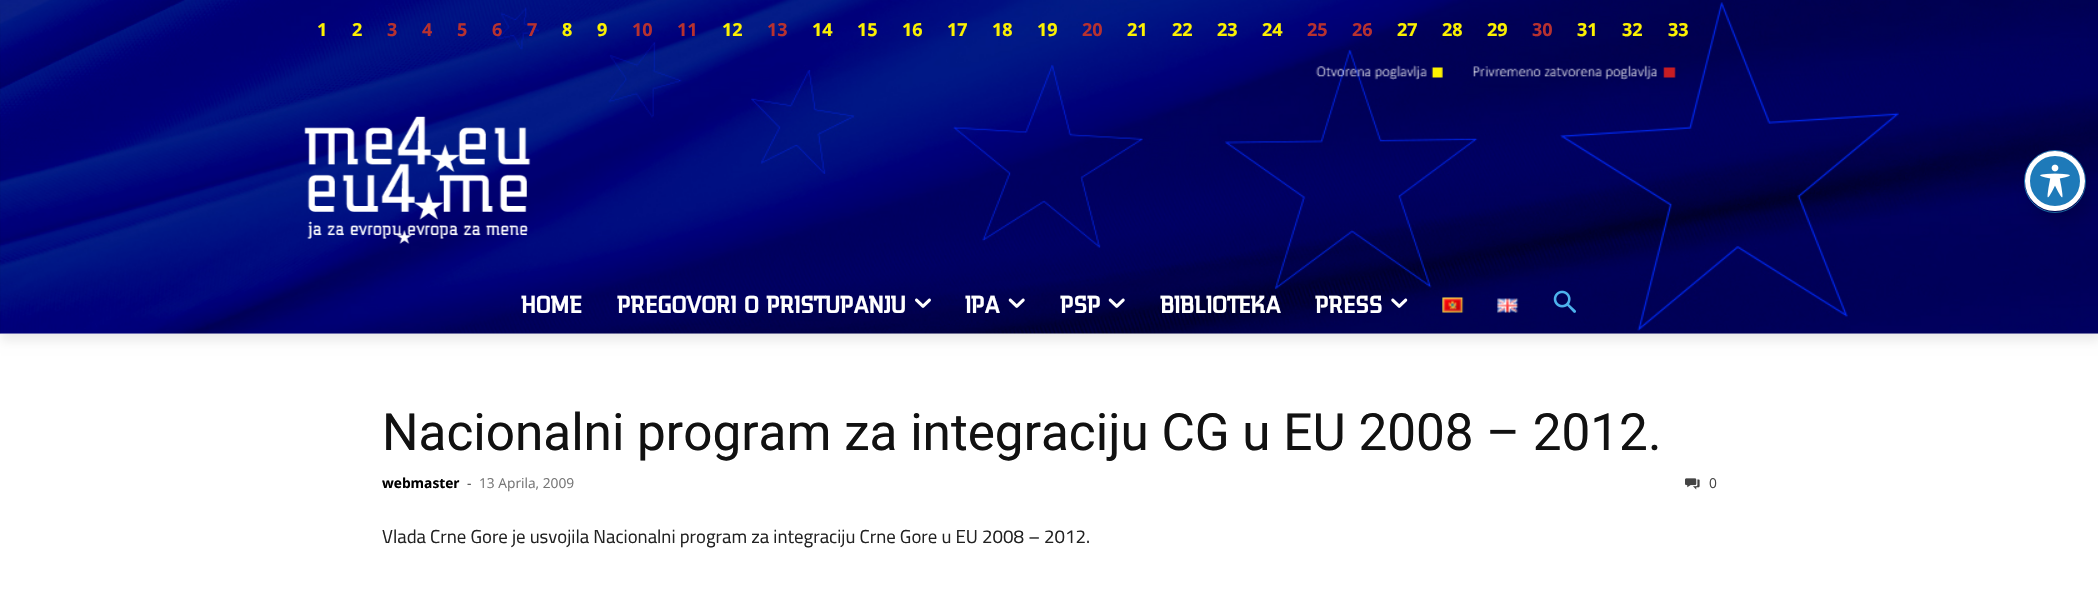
void draw(SkCanvas* canvas) {
	SkPaint paint;
	paint.setAntiAlias(true);
	auto svgPath = [&](const char* data, bool evenOdd = false) {
		SkPath result = *SkParsePath::FromSVGString(data);
		if (evenOdd) result.setFillType(SkPathFillType::kEvenOdd);
		return result;
	};
	canvas->clear(0xffffffff);
	canvas->drawImageRect(SkImages::DeferredFromEncodedData(SkData::MakeFromFileName("img1.png")), SkRect::MakeXYWH(0, 0, 2098, 334), SkSamplingOptions());
	canvas->drawImageRect(SkImages::DeferredFromEncodedData(SkData::MakeFromFileName("img2.png")), SkRect::MakeXYWH(1315, 65, 361, 15), SkSamplingOptions());
	canvas->drawImageRect(SkImages::DeferredFromEncodedData(SkData::MakeFromFileName("img3.png")), SkRect::MakeXYWH(304, 116, 227, 128), SkSamplingOptions());
	canvas->save();
	canvas->clipPath(svgPath("M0 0H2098V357H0ZM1 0H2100V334H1Z", true), true);
	paint.setColor(0x14000000);
	paint.setMaskFilter(SkMaskFilter::MakeBlur(kNormal_SkBlurStyle, 5));
	canvas->drawRect(SkRect::MakeXYWH(1, 8, 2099, 333), paint);
	paint.setMaskFilter(nullptr);
	canvas->restore();
	SkFont f1(fontMgr->matchFamilyStyle("Open Sans", SkFontStyle::Bold()), 18);
	f1.setSubpixel(true);
	paint.setColor(0xfffcf100);
	canvas->drawString("1", 317, 36, f1, paint);
	canvas->drawString("2", 352, 36, f1, paint);
	paint.setColor(0xffb8312f);
	canvas->drawString("3", 387, 36, f1, paint);
	canvas->drawString("4", 422, 36, f1, paint);
	canvas->drawString("5", 457, 36, f1, paint);
	canvas->drawString("6", 492, 36, f1, paint);
	canvas->drawString("7", 527, 36, f1, paint);
	paint.setColor(0xfffcf100);
	canvas->drawString("8", 562, 36, f1, paint);
	canvas->drawString("9", 597, 36, f1, paint);
	paint.setColor(0xffb8312f);
	canvas->drawString("10", 632, 36, f1, paint);
	canvas->drawString("11", 677, 36, f1, paint);
	paint.setColor(0xfffcf100);
	canvas->drawString("12", 722, 36, f1, paint);
	paint.setColor(0xffb8312f);
	canvas->drawString("13", 767, 36, f1, paint);
	paint.setColor(0xfffcf100);
	canvas->drawString("14", 812, 36, f1, paint);
	canvas->drawString("15", 857, 36, f1, paint);
	canvas->drawString("16", 902, 36, f1, paint);
	canvas->drawString("17", 947, 36, f1, paint);
	canvas->drawString("18", 992, 36, f1, paint);
	canvas->drawString("19", 1037, 36, f1, paint);
	paint.setColor(0xffb8312f);
	canvas->drawString("20", 1082, 36, f1, paint);
	paint.setColor(0xfffcf100);
	canvas->drawString("21", 1127, 36, f1, paint);
	canvas->drawString("22", 1172, 36, f1, paint);
	canvas->drawString("23", 1217, 36, f1, paint);
	canvas->drawString("24", 1262, 36, f1, paint);
	paint.setColor(0xffb8312f);
	canvas->drawString("25", 1307, 36, f1, paint);
	canvas->drawString("26", 1352, 36, f1, paint);
	paint.setColor(0xfffcf100);
	canvas->drawString("27", 1397, 36, f1, paint);
	canvas->drawString("28", 1442, 36, f1, paint);
	canvas->drawString("29", 1487, 36, f1, paint);
	paint.setColor(0xffb8312f);
	canvas->drawString("30", 1532, 36, f1, paint);
	paint.setColor(0xfffcf100);
	canvas->drawString("31", 1577, 36, f1, paint);
	canvas->drawString("32", 1622, 36, f1, paint);
	canvas->drawString("33", 1668, 36, f1, paint);
	SkFont f2(fontMgr->matchFamilyStyle("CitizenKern", SkFontStyle::Bold()), 27.5);
	f2.setSubpixel(true);
	paint.setColor(0xffffffff);
	canvas->drawString("HOME", 521, 313, f2, paint);
	canvas->drawString("PREGOVORI O PRISTUPANJU", 617, 313, f2, paint);
	canvas->drawImageRect(SkImages::DeferredFromEncodedData(SkData::MakeFromFileName("img4.png")), SkRect::MakeXYWH(915, 298, 16, 10), SkSamplingOptions());
	canvas->drawString("IPA", 965, 313, f2, paint);
	canvas->drawImageRect(SkImages::DeferredFromEncodedData(SkData::MakeFromFileName("img5.png")), SkRect::MakeXYWH(1008, 298, 17, 10), SkSamplingOptions());
	canvas->drawString("PSP", 1060, 313, f2, paint);
	canvas->drawImageRect(SkImages::DeferredFromEncodedData(SkData::MakeFromFileName("img6.png")), SkRect::MakeXYWH(1108, 298, 17, 10), SkSamplingOptions());
	canvas->drawString("BIBLIOTEKA", 1160, 313, f2, paint);
	canvas->drawString("PRESS", 1315, 313, f2, paint);
	canvas->drawImageRect(SkImages::DeferredFromEncodedData(SkData::MakeFromFileName("img7.png")), SkRect::MakeXYWH(1391, 298, 17, 10), SkSamplingOptions());
	canvas->drawImageRect(SkImages::DeferredFromEncodedData(SkData::MakeFromFileName("img8.png")), SkRect::MakeXYWH(1442, 297, 22, 16), SkSamplingOptions());
	canvas->drawImageRect(SkImages::DeferredFromEncodedData(SkData::MakeFromFileName("img9.png")), SkRect::MakeXYWH(1497, 298, 22, 15), SkSamplingOptions());
	canvas->drawImageRect(SkImages::DeferredFromEncodedData(SkData::MakeFromFileName("img10.png")), SkRect::MakeXYWH(1553, 290, 23, 23), SkSamplingOptions());
	SkFont f3(fontMgr->matchFamilyStyle("Roboto", SkFontStyle::Normal()), 51.25);
	f3.setSubpixel(true);
	paint.setColor(0xff111111);
	canvas->drawString("Nacionalni program za integraciju CG u EU 2008 – 2012.", 382, 450, f3, paint);
	SkFont f4(fontMgr->matchFamilyStyle("Open Sans", SkFontStyle::Bold()), 13.75);
	f4.setSubpixel(true);
	paint.setColor(0xff000000);
	canvas->drawString("webmaster", 382, 488, f4, paint);
	SkFont f5(fontMgr->matchFamilyStyle("Open Sans", SkFontStyle::Normal()), 13.75);
	f5.setSubpixel(true);
	paint.setColor(0xff444444);
	canvas->drawString("-", 467, 488, f5, paint);
	paint.setColor(0xff767676);
	canvas->drawString("13 Aprila, 2009", 479, 488, f5, paint);
	canvas->drawImageRect(SkImages::DeferredFromEncodedData(SkData::MakeFromFileName("img11.png")), SkRect::MakeXYWH(1685, 478, 15, 12), SkSamplingOptions());
	paint.setColor(0xff444444);
	canvas->drawString("0", 1709, 488, f5, paint);
	SkFont f6(fontMgr->matchFamilyStyle("Titillium Web", SkFontStyle::Normal()), 18.75);
	f6.setSubpixel(true);
	paint.setColor(0xff222222);
	canvas->drawString("Vlada Crne Gore je usvojila Nacionalni program za integraciju Crne Gore u EU 2008 – 2012.", 382, 543, f6, paint);
	paint.setStroke(true);
	paint.setStrokeWidth(1);
	paint.setColor(0xff1e7ab9);
	canvas->drawRoundRect(SkRect::MakeXYWH(2024.5, 150.5, 61, 62), 30.5, 30.5, paint);
	paint.setStroke(false);
	paint.setColor(0x33000000);
	paint.setMaskFilter(SkMaskFilter::MakeBlur(kNormal_SkBlurStyle, 10));
	canvas->drawRoundRect(SkRect::MakeXYWH(2033, 161, 60, 60), 30, 30, paint);
	paint.setMaskFilter(nullptr);
	paint.setColor(0xff1e7ab9);
	canvas->drawCircle(2055, 181, 27.5, paint);
	paint.setStroke(true);
	paint.setStrokeWidth(5);
	paint.setColor(0xffffffff);
	canvas->drawCircle(2055, 181, 27.5, paint);
	canvas->drawImageRect(SkImages::DeferredFromEncodedData(SkData::MakeFromFileName("img12.png")), SkRect::MakeXYWH(2040, 164, 30, 34), SkSamplingOptions());
}
